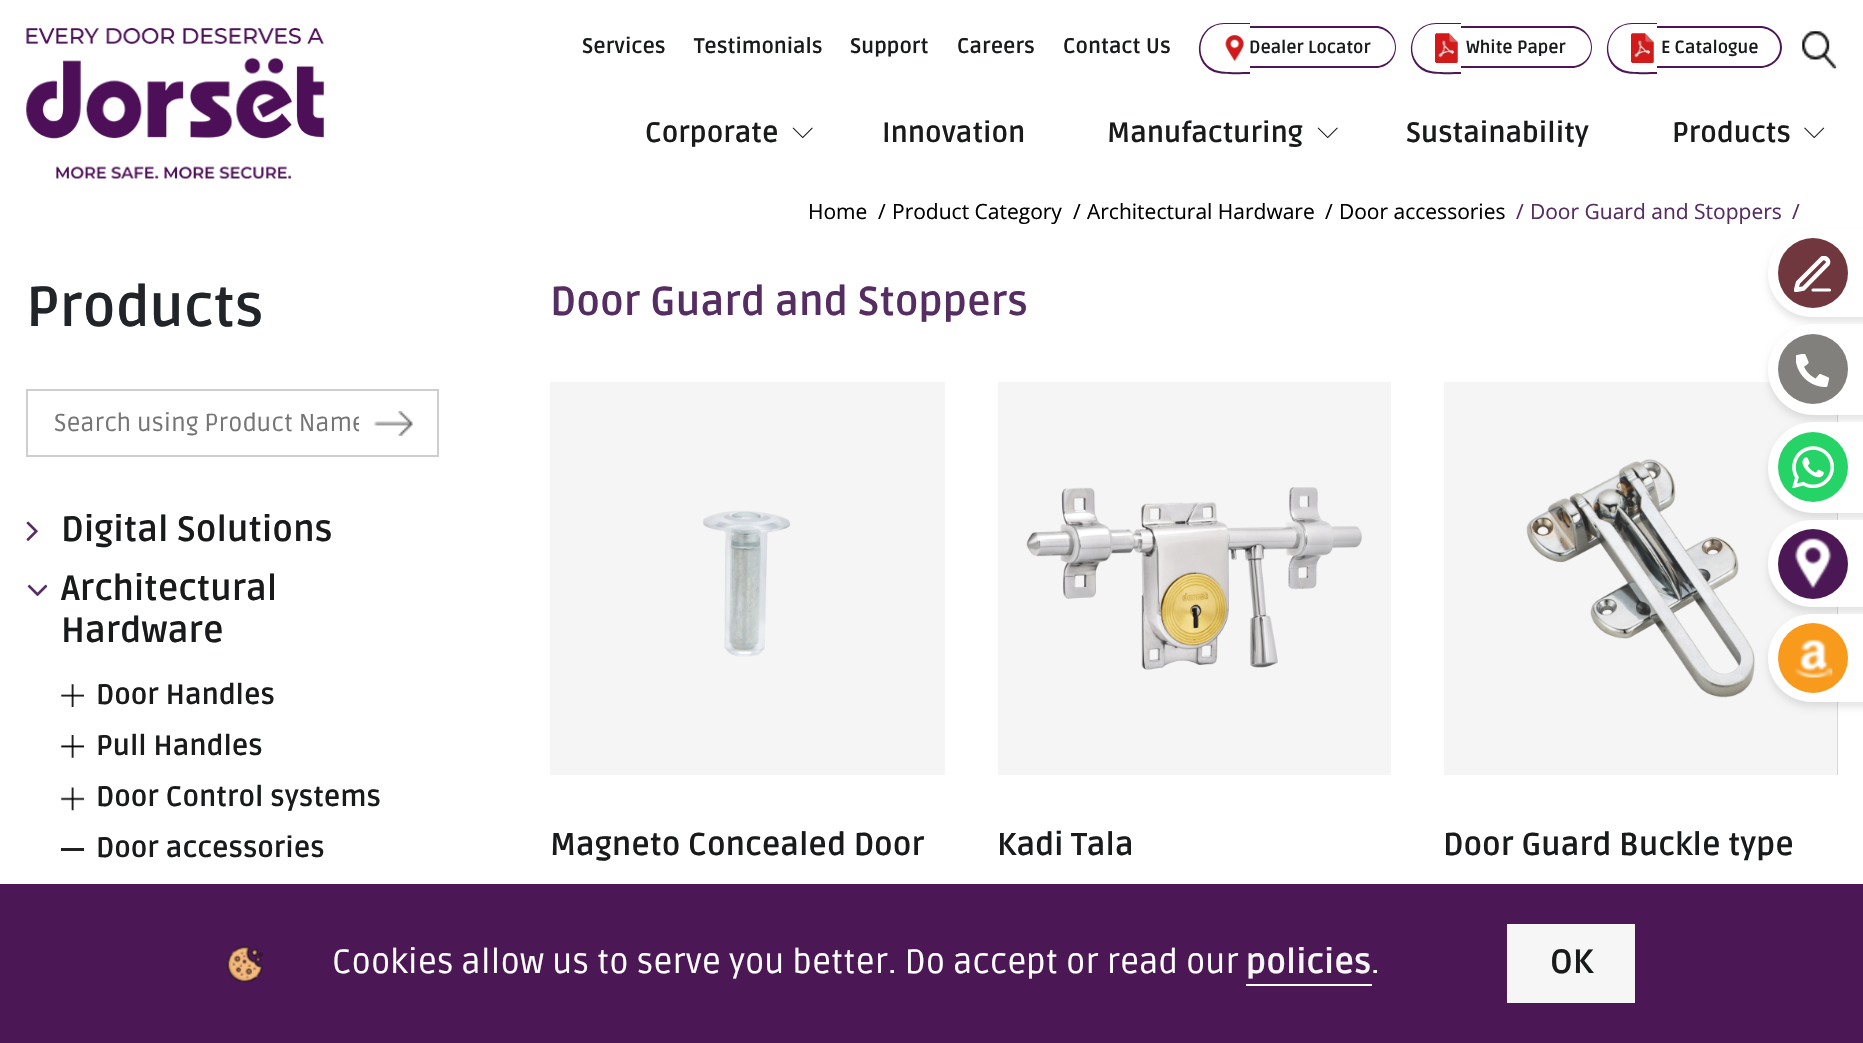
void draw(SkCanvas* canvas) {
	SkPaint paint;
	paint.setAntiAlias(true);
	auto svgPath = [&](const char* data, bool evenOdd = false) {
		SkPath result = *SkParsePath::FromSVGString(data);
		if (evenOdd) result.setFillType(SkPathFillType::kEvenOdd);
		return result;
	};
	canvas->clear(0xffffffff);
	canvas->drawImageRect(SkImages::DeferredFromEncodedData(SkData::MakeFromFileName("img1.png")), SkRect::MakeXYWH(26, 28, 298, 151), SkSamplingOptions());
	SkFont f1(fontMgr->matchFamilyStyle("Ruda", SkFontStyle::Bold()), 21);
	f1.setSubpixel(true);
	paint.setColor(0xff181a1b);
	canvas->drawString("Services", 582, 53, f1, paint);
	canvas->drawString("Testimonials", 694, 53, f1, paint);
	canvas->drawString("Support", 850, 53, f1, paint);
	canvas->drawString("Careers", 957, 53, f1, paint);
	canvas->drawString("Contact Us", 1063, 53, f1, paint);
	paint.setColor(0xff4c1755);
	canvas->drawPath(svgPath("M1224 23H1250V74C1240 74 1223 75 1214 72C1189 61 1197 23 1224 23ZM1224 24H1250V72C1240 72 1223 73 1215 70C1191 60 1199 24 1224 24Z", true), paint);
	canvas->drawImageRect(SkImages::DeferredFromEncodedData(SkData::MakeFromFileName("img2.png")), SkRect::MakeXYWH(1225, 35, 19, 27), SkSamplingOptions());
	canvas->drawPath(svgPath("M1250 26H1376C1387 26 1396 36 1396 47C1396 59 1387 68 1376 68H1250ZM1250 28H1376C1386 28 1395 37 1395 47C1395 58 1386 66 1376 66H1250Z", true), paint);
	SkFont f2(fontMgr->matchFamilyStyle("Ruda", SkFontStyle::Bold()), 17.5);
	f2.setSubpixel(true);
	paint.setColor(0xff181a1b);
	canvas->drawString("Dealer Locator", 1249, 53, f2, paint);
	paint.setColor(0xff4c1755);
	canvas->drawPath(svgPath("M1436 23H1461V74C1452 74 1434 75 1426 72C1401 61 1409 23 1436 23ZM1436 24H1461V72C1452 72 1434 73 1427 70C1403 60 1410 24 1436 24Z", true), paint);
	canvas->drawImageRect(SkImages::DeferredFromEncodedData(SkData::MakeFromFileName("img3.png")), SkRect::MakeXYWH(1435, 33, 23, 30), SkSamplingOptions());
	canvas->drawPath(svgPath("M1461 26H1572C1583 26 1592 36 1592 47C1592 59 1583 68 1572 68H1461ZM1461 28H1572C1582 28 1591 37 1591 47C1591 58 1582 66 1572 66H1461Z", true), paint);
	paint.setColor(0xff181a1b);
	canvas->drawString("White Paper", 1466, 53, f2, paint);
	paint.setColor(0xff4c1755);
	canvas->drawPath(svgPath("M1632 23H1657V74C1648 74 1630 75 1622 72C1597 61 1605 23 1632 23ZM1632 24H1657V72C1648 72 1630 73 1623 70C1599 60 1606 24 1632 24Z", true), paint);
	canvas->drawImageRect(SkImages::DeferredFromEncodedData(SkData::MakeFromFileName("img3.png")), SkRect::MakeXYWH(1631, 33, 23, 30), SkSamplingOptions());
	canvas->drawPath(svgPath("M1657 26H1760C1772 26 1782 36 1782 47C1782 59 1772 68 1760 68H1657ZM1657 28H1760C1771 28 1780 37 1780 47C1780 58 1771 66 1760 66H1657Z", true), paint);
	paint.setColor(0xff181a1b);
	canvas->drawString("E Catalogue", 1661, 53, f2, paint);
	canvas->drawImageRect(SkImages::DeferredFromEncodedData(SkData::MakeFromFileName("img4.png")), SkRect::MakeXYWH(1802, 31, 35, 38), SkSamplingOptions());
	canvas->drawImageRect(SkImages::DeferredFromEncodedData(SkData::MakeFromFileName("img5.png")), SkRect::MakeXYWH(1802, 31, 35, 38), SkSamplingOptions());
	SkFont f3(fontMgr->matchFamilyStyle("Ruda", SkFontStyle::Bold()), 28);
	f3.setSubpixel(true);
	canvas->drawString("Corporate", 645, 142, f3, paint);
	canvas->drawImageRect(SkImages::DeferredFromEncodedData(SkData::MakeFromFileName("img6.png")), SkRect::MakeXYWH(792, 127, 21, 11), SkSamplingOptions());
	canvas->drawString("Innovation", 882, 142, f3, paint);
	canvas->drawString("Manufacturing", 1107, 142, f3, paint);
	canvas->drawImageRect(SkImages::DeferredFromEncodedData(SkData::MakeFromFileName("img6.png")), SkRect::MakeXYWH(1317, 127, 21, 11), SkSamplingOptions());
	canvas->drawString("Sustainability", 1406, 142, f3, paint);
	canvas->drawString("Products", 1672, 142, f3, paint);
	canvas->drawImageRect(SkImages::DeferredFromEncodedData(SkData::MakeFromFileName("img7.png")), SkRect::MakeXYWH(1804, 127, 21, 11), SkSamplingOptions());
	SkFont f4(fontMgr->matchFamilyStyle("Open Sans", SkFontStyle::Normal()), 21);
	f4.setSubpixel(true);
	paint.setColor(0xff000000);
	canvas->drawString("Home", 808, 219, f4, paint);
	canvas->drawString("/", 878, 219, f4, paint);
	canvas->drawString("Product Category", 892, 219, f4, paint);
	canvas->drawString("/", 1073, 219, f4, paint);
	canvas->drawString("Architectural Hardware", 1087, 219, f4, paint);
	canvas->drawString("/", 1325, 219, f4, paint);
	canvas->drawString("Door accessories", 1339, 219, f4, paint);
	paint.setColor(0xff552d62);
	canvas->drawString("/", 1516, 219, f4, paint);
	canvas->drawString("Door Guard and Stoppers", 1530, 219, f4, paint);
	canvas->drawString("/", 1792, 219, f4, paint);
	SkFont f5(fontMgr->matchFamilyStyle("Ruda", SkFontStyle::Bold()), 56);
	f5.setSubpixel(true);
	paint.setColor(0xff212529);
	canvas->drawString("Products", 26, 326, f5, paint);
	paint.setStroke(true);
	paint.setStrokeWidth(2);
	paint.setColor(0xffcecece);
	canvas->drawRect(SkRect::MakeXYWH(27, 390, 411, 66), paint);
	canvas->drawImageRect(SkImages::DeferredFromEncodedData(SkData::MakeFromFileName("img8.png")), SkRect::MakeXYWH(374, 411, 39, 25), SkSamplingOptions());
	canvas->save();
	canvas->clipRect(SkRect::MakeXYWH(54, 408, 305, 30));
	SkFont f6(fontMgr->matchFamilyStyle("Ruda", SkFontStyle::Normal()), 24.5);
	f6.setSubpixel(true);
	paint.setStroke(false);
	paint.setColor(0xff757575);
	canvas->drawString("Search using Product Name", 54, 431, f6, paint);
	canvas->restore();
	canvas->drawImageRect(SkImages::DeferredFromEncodedData(SkData::MakeFromFileName("img9.png")), SkRect::MakeXYWH(374, 411, 39, 25), SkSamplingOptions());
	canvas->drawImageRect(SkImages::DeferredFromEncodedData(SkData::MakeFromFileName("img10.png")), SkRect::MakeXYWH(26, 521, 12, 20), SkSamplingOptions());
	SkFont f7(fontMgr->matchFamilyStyle("Ruda", SkFontStyle::Bold()), 35);
	f7.setSubpixel(true);
	paint.setColor(0xff181a1b);
	canvas->drawString("Digital Solutions", 61, 541, f7, paint);
	canvas->drawImageRect(SkImages::DeferredFromEncodedData(SkData::MakeFromFileName("img11.png")), SkRect::MakeXYWH(27, 584, 21, 13), SkSamplingOptions());
	canvas->drawString("Architectural", 61, 600, f7, paint);
	canvas->drawString("Hardware", 61, 642, f7, paint);
	canvas->drawImageRect(SkImages::DeferredFromEncodedData(SkData::MakeFromFileName("img12.png")), SkRect::MakeXYWH(61, 684, 23, 23), SkSamplingOptions());
	canvas->drawString("Door Handles", 96, 704, f3, paint);
	canvas->drawImageRect(SkImages::DeferredFromEncodedData(SkData::MakeFromFileName("img13.png")), SkRect::MakeXYWH(61, 735, 23, 23), SkSamplingOptions());
	canvas->drawString("Pull Handles", 96, 755, f3, paint);
	canvas->drawImageRect(SkImages::DeferredFromEncodedData(SkData::MakeFromFileName("img14.png")), SkRect::MakeXYWH(61, 787, 23, 24), SkSamplingOptions());
	canvas->drawString("Door Control systems", 96, 806, f3, paint);
	paint.setColor(0xff212121);
	canvas->drawRect(SkRect::MakeXYWH(61, 848, 23, 3), paint);
	paint.setColor(0xff181a1b);
	canvas->drawString("Door accessories", 96, 857, f3, paint);
	SkFont f8(fontMgr->matchFamilyStyle("Ruda", SkFontStyle::Bold()), 40.25);
	f8.setSubpixel(true);
	paint.setColor(0xff552d62);
	canvas->drawString("Door Guard and Stoppers", 550, 315, f8, paint);
	canvas->drawImageRect(SkImages::DeferredFromEncodedData(SkData::MakeFromFileName("img15.png")), SkRect::MakeXYWH(550, 382, 395, 393), SkSamplingOptions());
	SkFont f9(fontMgr->matchFamilyStyle("Ruda", SkFontStyle::Bold()), 31.5);
	f9.setSubpixel(true);
	paint.setColor(0xff181a1b);
	canvas->drawString("Magneto Concealed Door", 550, 855, f9, paint);
	canvas->drawImageRect(SkImages::DeferredFromEncodedData(SkData::MakeFromFileName("img16.png")), SkRect::MakeXYWH(998, 382, 393, 393), SkSamplingOptions());
	canvas->drawString("Kadi Tala", 997, 855, f9, paint);
	paint.setColor(0xffcccccc);
	canvas->drawRect(SkRect::MakeXYWH(1837, 415, 1, 360), paint);
	canvas->drawImageRect(SkImages::DeferredFromEncodedData(SkData::MakeFromFileName("img17.png")), SkRect::MakeXYWH(1444, 382, 394, 393), SkSamplingOptions());
	paint.setColor(0xff181a1b);
	canvas->drawString("Door Guard Buckle type", 1443, 855, f9, paint);
	paint.setColor(0x1a000000);
	paint.setMaskFilter(SkMaskFilter::MakeBlur(kNormal_SkBlurStyle, 3.5));
	canvas->drawRoundRect(SkRect::MakeXYWH(1768, 235, 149, 87), 43.5, 43.5, paint);
	paint.setMaskFilter(nullptr);
	paint.setColor(0xffffffff);
	canvas->drawPath(svgPath("M1812 229H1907V317H1812C1787.5 317 1768 297.5 1768 273C1768 248.5 1787.5 229 1812 229Z"), paint);
	paint.setColor(0xff70383e);
	canvas->drawCircle(1813, 273, 35, paint);
	paint.setStroke(true);
	paint.setStrokeWidth(3.1);
	paint.setStrokeCap(SkPaint::kRound_Cap);
	paint.setStrokeJoin(SkPaint::kRound_Join);
	paint.setColor(0xffffffff);
	canvas->drawPath(svgPath("M1813 290H1829.5"), paint);
	canvas->save();
	canvas->clipRect(SkRect::MakeXYWH(1794, 256, 38, 36));
	paint.setStrokeWidth(4.4);
	canvas->drawPath(svgPath("M1821.5 259C1824.5 256 1830 260.5 1827.5 264L1803.5 288.5L1796 290L1798 282.5Z"), paint);
	canvas->restore();
	paint.setStroke(false);
	paint.setColor(0x1a000000);
	paint.setMaskFilter(SkMaskFilter::MakeBlur(kNormal_SkBlurStyle, 3.5));
	canvas->drawRoundRect(SkRect::MakeXYWH(1768, 329, 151, 91), 45.5, 45.5, paint);
	paint.setMaskFilter(nullptr);
	paint.setColor(0xffffffff);
	canvas->drawPath(svgPath("M1813.5 324H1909V415H1813.5C1788.5 415 1768 394.5 1768 369.5C1768 344.5 1788.5 324 1813.5 324Z"), paint);
	paint.setColor(0xff81807d);
	canvas->drawCircle(1813, 369, 35, paint);
	canvas->drawImageRect(SkImages::DeferredFromEncodedData(SkData::MakeFromFileName("img18.png")), SkRect::MakeXYWH(1796, 354, 34, 33), SkSamplingOptions());
	paint.setColor(0x1a000000);
	paint.setMaskFilter(SkMaskFilter::MakeBlur(kNormal_SkBlurStyle, 3.5));
	canvas->drawRoundRect(SkRect::MakeXYWH(1768, 427, 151, 91), 45.5, 45.5, paint);
	paint.setMaskFilter(nullptr);
	paint.setColor(0xffffffff);
	canvas->drawPath(svgPath("M1813.5 422H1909V513H1813.5C1788.5 513 1768 492.5 1768 467.5C1768 442.5 1788.5 422 1813.5 422Z"), paint);
	paint.setColor(0xff25d366);
	canvas->drawCircle(1813, 467, 35, paint);
	canvas->drawImageRect(SkImages::DeferredFromEncodedData(SkData::MakeFromFileName("img19.png")), SkRect::MakeXYWH(1792, 446, 42, 42), SkSamplingOptions());
	paint.setColor(0x1a000000);
	paint.setMaskFilter(SkMaskFilter::MakeBlur(kNormal_SkBlurStyle, 3.5));
	canvas->drawRoundRect(SkRect::MakeXYWH(1768, 525, 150, 88), 44, 44, paint);
	paint.setMaskFilter(nullptr);
	paint.setColor(0xffffffff);
	canvas->drawPath(svgPath("M1811.5 520H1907V607H1811.5C1787.5 607 1768 587.5 1768 563.5C1768 539.5 1787.5 520 1811.5 520Z"), paint);
	paint.setColor(0xff4c1755);
	canvas->drawCircle(1813, 564, 35, paint);
	canvas->drawImageRect(SkImages::DeferredFromEncodedData(SkData::MakeFromFileName("img20.png")), SkRect::MakeXYWH(1794, 538, 38, 51), SkSamplingOptions());
	paint.setColor(0x1a000000);
	paint.setMaskFilter(SkMaskFilter::MakeBlur(kNormal_SkBlurStyle, 3.5));
	canvas->drawRoundRect(SkRect::MakeXYWH(1768, 620, 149, 87), 43.5, 43.5, paint);
	paint.setMaskFilter(nullptr);
	paint.setColor(0xffffffff);
	canvas->drawPath(svgPath("M1812 614H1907V702H1812C1787.5 702 1768 682.5 1768 658C1768 633.5 1787.5 614 1812 614Z"), paint);
	paint.setColor(0xfff89a1c);
	canvas->drawCircle(1813, 658, 35, paint);
	canvas->drawImageRect(SkImages::DeferredFromEncodedData(SkData::MakeFromFileName("img21.png")), SkRect::MakeXYWH(1795, 639, 38, 39), SkSamplingOptions());
	paint.setColor(0xff4c1755);
	canvas->drawRect(SkRect::MakeXYWH(0, 884, 1863, 159), paint);
	canvas->drawImageRect(SkImages::DeferredFromEncodedData(SkData::MakeFromFileName("img22.png")), SkRect::MakeXYWH(227, 946, 36, 36), SkSamplingOptions());
	SkFont f10(fontMgr->matchFamilyStyle("Ruda", SkFontStyle::Normal()), 33.6);
	f10.setSubpixel(true);
	paint.setColor(0xffffffff);
	canvas->drawString("Cookies allow us to serve you better. Do accept or read our", 332, 973, f10, paint);
	SkFont f11(fontMgr->matchFamilyStyle("Ruda", SkFontStyle::Bold()), 33.6);
	f11.setSubpixel(true);
	paint.setColor(0xfff6f6f6);
	canvas->drawString("policies", 1246, 973, f11, paint);
	paint.setColor(0xffffffff);
	canvas->drawRect(SkRect::MakeXYWH(1246, 984, 126, 2), paint);
	canvas->drawString(".", 1371, 973, f10, paint);
	paint.setColor(0xfff6f6f6);
	canvas->drawRect(SkRect::MakeXYWH(1507, 924, 128, 79), paint);
	paint.setColor(0xff181a1b);
	canvas->drawString("OK", 1550, 973, f11, paint);
}
